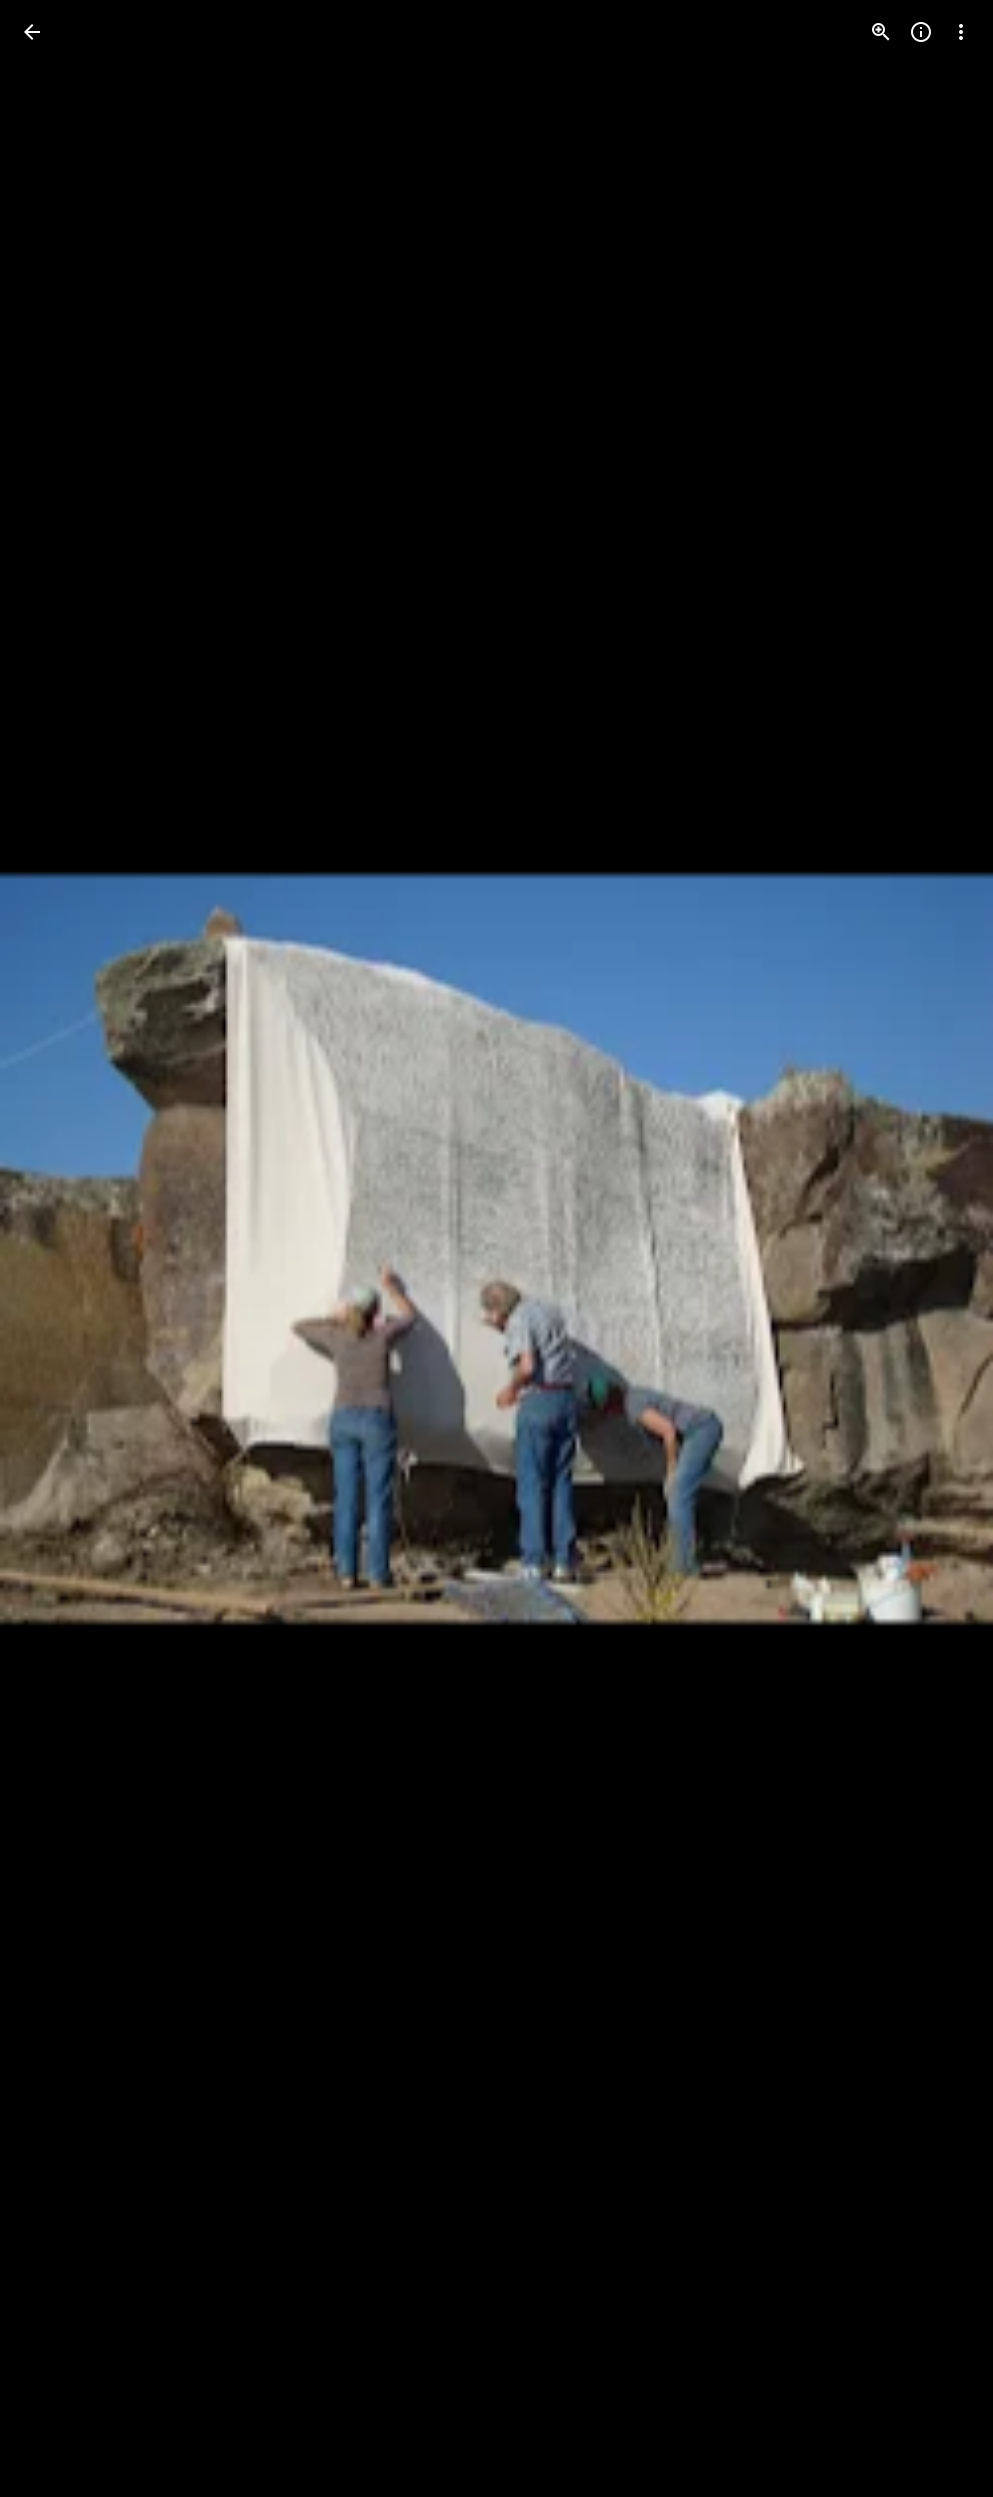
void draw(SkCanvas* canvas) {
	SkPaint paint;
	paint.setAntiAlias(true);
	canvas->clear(0xff000000);
	canvas->drawImageRect(SkImages::DeferredFromEncodedData(SkData::MakeFromFileName("img1.png")), SkRect::MakeXYWH(24, 24, 16, 16), SkSamplingOptions());
	canvas->drawImageRect(SkImages::DeferredFromEncodedData(SkData::MakeFromFileName("img2.png")), SkRect::MakeXYWH(872, 23, 18, 18), SkSamplingOptions());
	canvas->drawImageRect(SkImages::DeferredFromEncodedData(SkData::MakeFromFileName("img3.png")), SkRect::MakeXYWH(911, 22, 20, 20), SkSamplingOptions());
	canvas->drawImageRect(SkImages::DeferredFromEncodedData(SkData::MakeFromFileName("img4.png")), SkRect::MakeXYWH(959, 24, 4, 16), SkSamplingOptions());
	canvas->drawImageRect(SkImages::DeferredFromEncodedData(SkData::MakeFromFileName("img5.png")), SkRect::MakeXYWH(0, 871, 993, 755), SkSamplingOptions());
}
